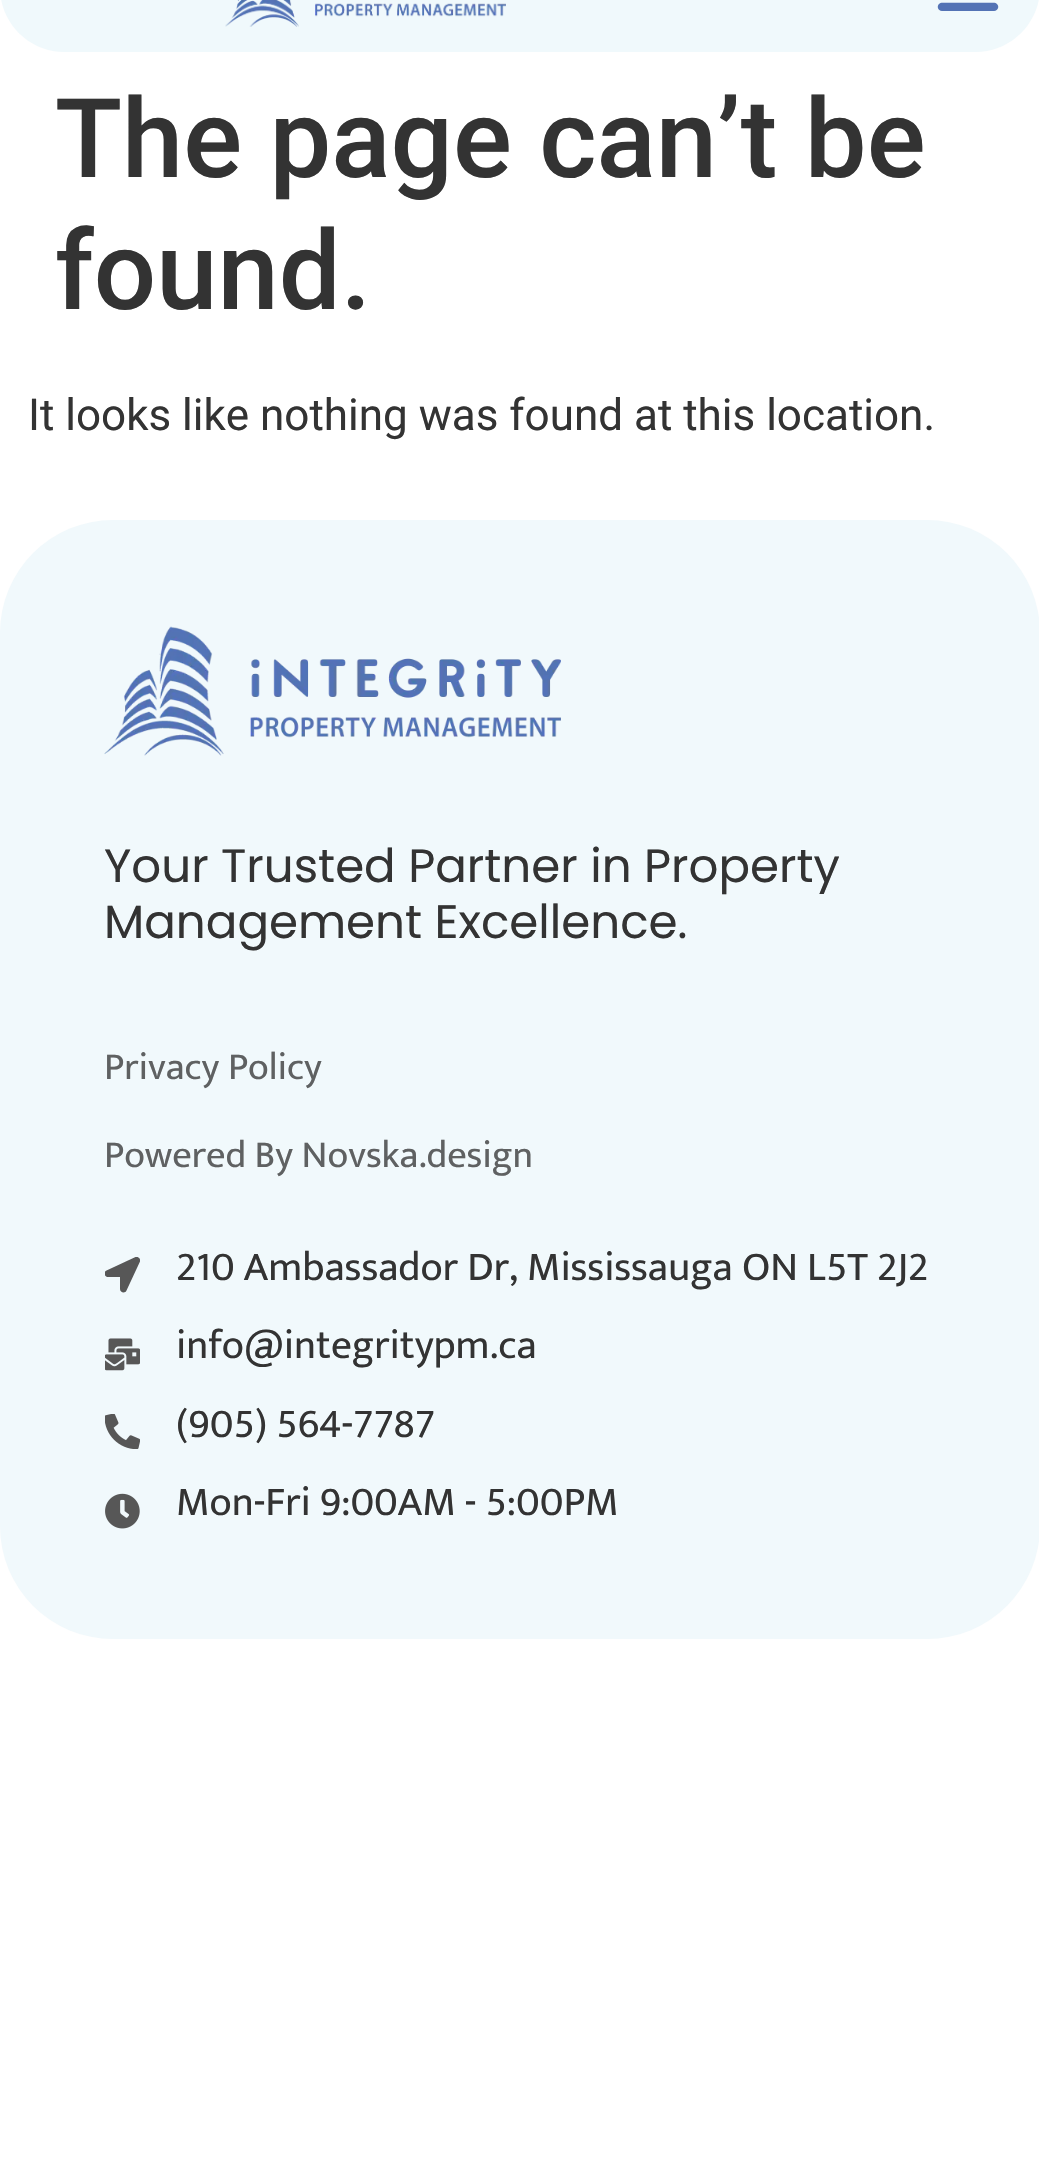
void draw(SkCanvas* canvas) {
	SkPaint paint;
	paint.setAntiAlias(true);
	auto svgPath = [&](const char* data, bool evenOdd = false) {
		SkPath result = *SkParsePath::FromSVGString(data);
		if (evenOdd) result.setFillType(SkPathFillType::kEvenOdd);
		return result;
	};
	canvas->clear(0xffffffff);
	paint.setColor(0xfff0f9fc);
	canvas->drawPath(svgPath("M64.5-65H831V52H64.5C29 52 0 23 0-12.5V-.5C0-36 29-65 64.5-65Z"), paint);
	canvas->drawImageRect(SkImages::DeferredFromEncodedData(SkData::MakeFromFileName("img1.png")), SkRect::MakeXYWH(225, 0, 281, 27), SkSamplingOptions());
	canvas->drawPath(svgPath("M831-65H975.5C1011-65 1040-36 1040-.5V-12.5C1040 23 1011 52 975.5 52H831Z"), paint);
	canvas->drawImageRect(SkImages::DeferredFromEncodedData(SkData::MakeFromFileName("img2.png")), SkRect::MakeXYWH(937, 2, 62, 9), SkSamplingOptions());
	SkFont f1(fontMgr->matchFamilyStyle("Roboto", SkFontStyle(500, SkFontStyle::kNormal_Width, SkFontStyle::kUpright_Slant)), 110);
	f1.setSubpixel(true);
	paint.setColor(0xff333333);
	canvas->drawString("The page can’t be", 55, 177, f1, paint);
	canvas->drawString("found.", 55, 309, f1, paint);
	SkFont f2(fontMgr->matchFamilyStyle("Roboto", SkFontStyle::Normal()), 44);
	f2.setSubpixel(true);
	canvas->drawString("It looks like nothing was found at this location.", 28, 430, f2, paint);
	paint.setColor(0xfff1f9fc);
	canvas->drawRoundRect(SkRect::MakeXYWH(0, 520, 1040, 1119), 113, 113, paint);
	canvas->drawImageRect(SkImages::DeferredFromEncodedData(SkData::MakeFromFileName("img3.png")), SkRect::MakeXYWH(104, 626, 457, 130), SkSamplingOptions());
	SkFont f3(fontMgr->matchFamilyStyle("Poppins", SkFontStyle::Normal()), 46.75);
	f3.setSubpixel(true);
	paint.setColor(0xff333333);
	canvas->drawString("Your Trusted Partner in Property", 104, 882, f3, paint);
	canvas->drawString("Management Excellence.", 104, 938, f3, paint);
	SkFont f4(fontMgr->matchFamilyStyle("Mukta Vaani", SkFontStyle::Normal()), 38.5);
	f4.setSubpixel(true);
	paint.setColor(0xff5f6162);
	canvas->drawString("Privacy Policy", 104, 1079, f4, paint);
	canvas->drawString("Powered By Novska.design", 104, 1167, f4, paint);
	canvas->save();
	canvas->clipRect(SkRect::MakeXYWH(105, 1257, 35, 36));
	paint.setColor(0xff575757);
	canvas->drawPath(svgPath("M135.5 1257L106.5 1270.5C103 1272 104.5 1277 108 1277H120V1289C120 1292.5 125 1294 126.5 1290.5L140 1261.5C141 1259 138 1256 135.5 1257Z"), paint);
	canvas->restore();
	SkFont f5(fontMgr->matchFamilyStyle("Mukta Vaani", SkFontStyle::Normal()), 41.25);
	f5.setSubpixel(true);
	paint.setColor(0xff333333);
	canvas->drawString("210 Ambassador Dr, Mississauga ON L5T 2J2", 176, 1280, f5, paint);
	canvas->drawImageRect(SkImages::DeferredFromEncodedData(SkData::MakeFromFileName("img4.png")), SkRect::MakeXYWH(105, 1338, 35, 33), SkSamplingOptions());
	canvas->drawString("info@integritypm.ca", 176, 1358, f5, paint);
	canvas->drawImageRect(SkImages::DeferredFromEncodedData(SkData::MakeFromFileName("img5.png")), SkRect::MakeXYWH(105, 1414, 35, 35), SkSamplingOptions());
	canvas->drawString("(905) 564-7787", 176, 1437, f5, paint);
	canvas->drawImageRect(SkImages::DeferredFromEncodedData(SkData::MakeFromFileName("img6.png")), SkRect::MakeXYWH(105, 1493, 35, 36), SkSamplingOptions());
	canvas->drawString("Mon-Fri 9:00AM - 5:00PM", 176, 1515, f5, paint);
}
